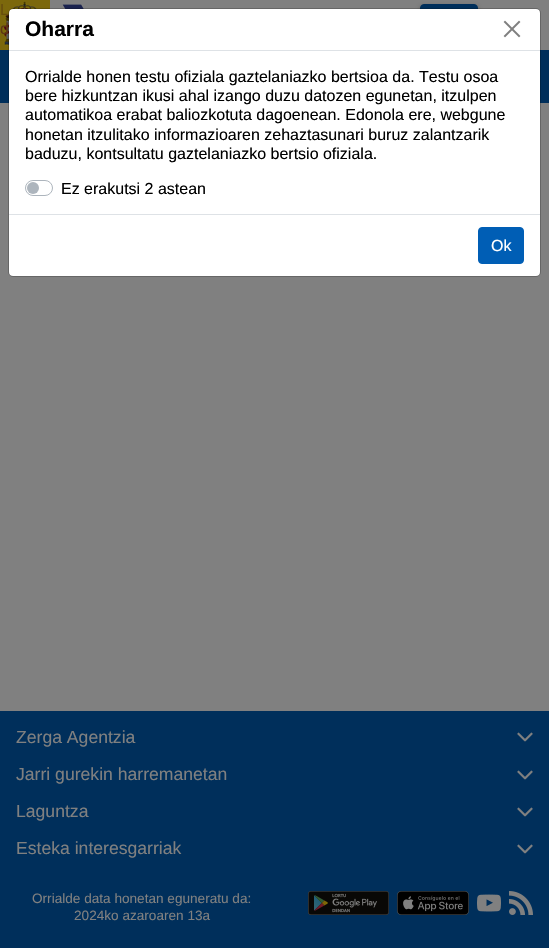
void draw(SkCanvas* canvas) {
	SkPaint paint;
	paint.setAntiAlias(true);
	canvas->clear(0xff808080);
	canvas->drawImageRect(SkImages::DeferredFromEncodedData(SkData::MakeFromFileName("img1.png")), SkRect::MakeXYWH(0, 0, 50, 50), SkSamplingOptions());
	SkFont f1(fontMgr->matchFamilyStyle("Liberation Sans", SkFontStyle::Normal()), 16);
	f1.setSubpixel(true);
	paint.setColor(0xff684e0d);
	canvas->drawString("L", 0, 15, f1, paint);
	paint.setColor(0xff5d3714);
	canvas->drawString("d", 0, 34, f1, paint);
	canvas->drawImageRect(SkImages::DeferredFromEncodedData(SkData::MakeFromFileName("img2.png")), SkRect::MakeXYWH(62, 4, 22, 5), SkSamplingOptions());
	paint.setColor(0xff002f5b);
	canvas->drawRect(SkRect::MakeXYWH(0, 50, 549, 53), paint);
	paint.setColor(0x4d000000);
	paint.setMaskFilter(SkMaskFilter::MakeBlur(kNormal_SkBlurStyle, 2));
	canvas->drawRoundRect(SkRect::MakeXYWH(420, 6, 58, 42), 4, 4, paint);
	paint.setMaskFilter(nullptr);
	paint.setColor(0xff002f5b);
	canvas->drawRoundRect(SkRect::MakeXYWH(420.5, 4.5, 57, 41), 3.5, 3.5, paint);
	paint.setStroke(true);
	paint.setStrokeWidth(1);
	canvas->drawRoundRect(SkRect::MakeXYWH(420.5, 4.5, 57, 41), 3.5, 3.5, paint);
	paint.setStroke(false);
	canvas->drawRect(SkRect::MakeXYWH(0, 711, 549, 237), paint);
	SkFont f2(fontMgr->matchFamilyStyle("Liberation Sans", SkFontStyle::Normal()), 17.6);
	f2.setSubpixel(true);
	paint.setColor(0xff808080);
	canvas->drawString("Zerga Agentzia", 16, 743, f2, paint);
	canvas->drawImageRect(SkImages::DeferredFromEncodedData(SkData::MakeFromFileName("img3.png")), SkRect::MakeXYWH(517, 732, 16, 10), SkSamplingOptions());
	canvas->drawString("Jarri gurekin harremanetan", 16, 780, f2, paint);
	canvas->drawImageRect(SkImages::DeferredFromEncodedData(SkData::MakeFromFileName("img3.png")), SkRect::MakeXYWH(517, 770, 16, 10), SkSamplingOptions());
	canvas->drawString("Laguntza", 16, 817, f2, paint);
	canvas->drawImageRect(SkImages::DeferredFromEncodedData(SkData::MakeFromFileName("img3.png")), SkRect::MakeXYWH(517, 807, 16, 10), SkSamplingOptions());
	canvas->drawString("Esteka interesgarriak", 16, 854, f2, paint);
	canvas->drawImageRect(SkImages::DeferredFromEncodedData(SkData::MakeFromFileName("img3.png")), SkRect::MakeXYWH(517, 844, 16, 10), SkSamplingOptions());
	SkFont f3(fontMgr->matchFamilyStyle("Liberation Sans", SkFontStyle::Normal()), 13.6);
	f3.setSubpixel(true);
	canvas->drawString("Orrialde data honetan eguneratu da:", 32, 903, f3, paint);
	canvas->drawString("2024ko azaroaren 13a", 74, 920, f3, paint);
	canvas->drawImageRect(SkImages::DeferredFromEncodedData(SkData::MakeFromFileName("img4.png")), SkRect::MakeXYWH(308, 891, 81, 24), SkSamplingOptions());
	canvas->drawImageRect(SkImages::DeferredFromEncodedData(SkData::MakeFromFileName("img5.png")), SkRect::MakeXYWH(397, 891, 72, 24), SkSamplingOptions());
	canvas->drawImageRect(SkImages::DeferredFromEncodedData(SkData::MakeFromFileName("img6.png")), SkRect::MakeXYWH(477, 894, 24, 18), SkSamplingOptions());
	canvas->drawImageRect(SkImages::DeferredFromEncodedData(SkData::MakeFromFileName("img7.png")), SkRect::MakeXYWH(509, 891, 24, 24), SkSamplingOptions());
	paint.setColor(0xffffffff);
	canvas->drawRoundRect(SkRect::MakeXYWH(9, 9, 531, 267), 4, 4, paint);
	paint.setStroke(true);
	paint.setColor(0x33000000);
	canvas->drawRoundRect(SkRect::MakeXYWH(8.5, 8.5, 532, 268), 4.5, 4.5, paint);
	paint.setStroke(false);
	paint.setColor(0xffdee2e6);
	canvas->drawRect(SkRect::MakeXYWH(9, 50, 531, 1), paint);
	SkFont f4(fontMgr->matchFamilyStyle("Liberation Sans", SkFontStyle::Bold()), 21);
	f4.setSubpixel(true);
	paint.setColor(0xff000000);
	canvas->drawString("Oharra", 25, 36, f4, paint);
	canvas->drawImageRect(SkImages::DeferredFromEncodedData(SkData::MakeFromFileName("img8.png")), SkRect::MakeXYWH(503, 20, 18, 18), SkSamplingOptions());
	canvas->drawString("Orrialde honen testu ofiziala gaztelaniazko bertsioa da. Testu osoa", 25, 82, f1, paint);
	canvas->drawString("bere hizkuntzan ikusi ahal izango duzu datozen egunetan, itzulpen", 25, 101, f1, paint);
	canvas->drawString("automatikoa erabat baliozkotuta dagoenean. Edonola ere, webgune", 25, 120, f1, paint);
	canvas->drawString("honetan itzulitako informazioaren zehaztasunari buruz zalantzarik", 25, 140, f1, paint);
	canvas->drawString("baduzu, kontsultatu gaztelaniazko bertsio ofiziala.", 25, 159, f1, paint);
	paint.setStroke(true);
	paint.setColor(0xffadb5bd);
	canvas->drawRoundRect(SkRect::MakeXYWH(25.5, 180.5, 27, 15), 7.5, 7.5, paint);
	paint.setStroke(false);
	canvas->drawCircle(33, 188, 6, paint);
	paint.setColor(0xff000000);
	canvas->drawString("Ez erakutsi 2 astean", 61, 194, f1, paint);
	paint.setColor(0xffdee2e6);
	canvas->drawRect(SkRect::MakeXYWH(9, 214, 531, 1), paint);
	paint.setColor(0xff005eb5);
	canvas->drawRoundRect(SkRect::MakeXYWH(478.5, 227.5, 45, 36), 3.5, 3.5, paint);
	paint.setStroke(true);
	canvas->drawRoundRect(SkRect::MakeXYWH(478.5, 227.5, 45, 36), 3.5, 3.5, paint);
	paint.setStroke(false);
	paint.setColor(0xffffffff);
	canvas->drawString("Ok", 491, 251, f1, paint);
}
